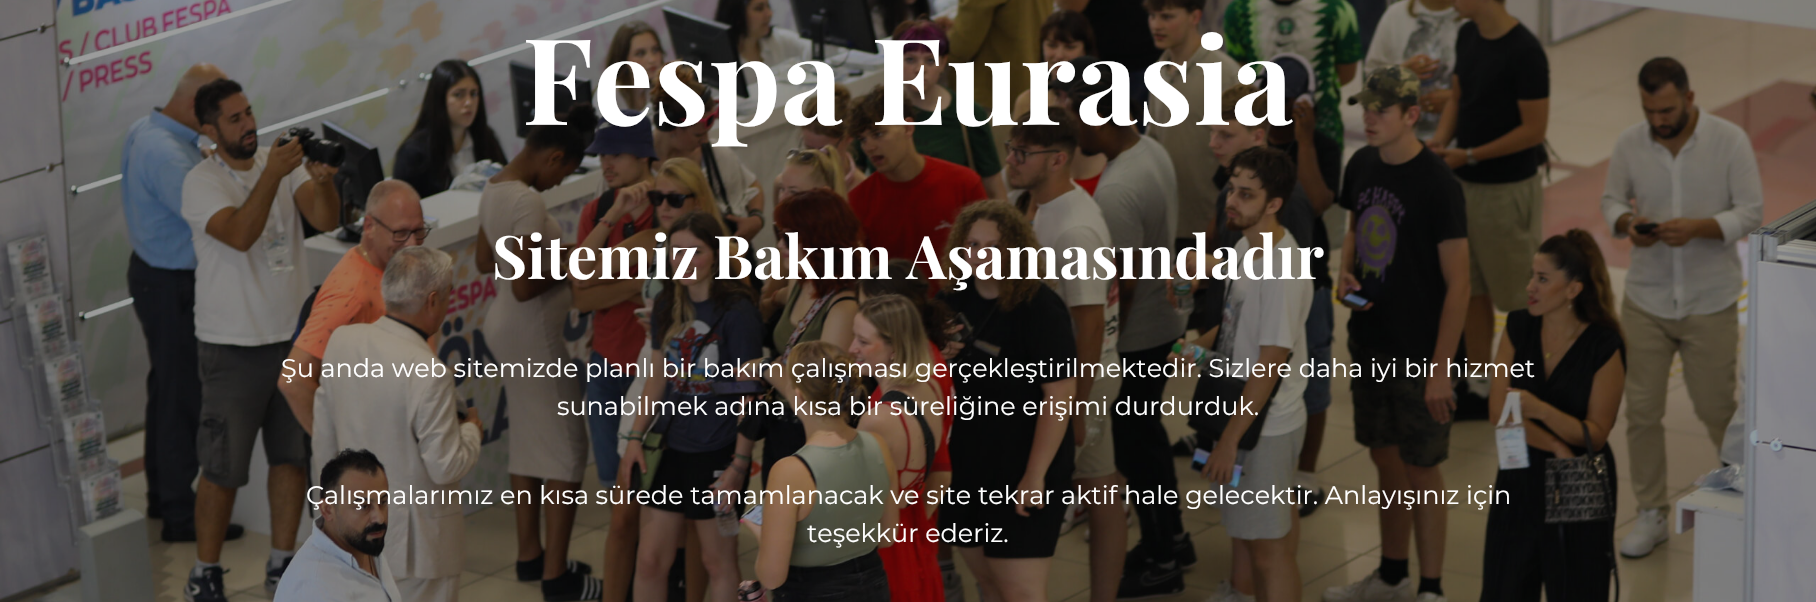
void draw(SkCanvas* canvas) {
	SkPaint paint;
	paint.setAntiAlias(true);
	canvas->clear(0xffffffff);
	canvas->drawImageRect(SkImages::DeferredFromEncodedData(SkData::MakeFromFileName("img1.png")), SkRect::MakeXYWH(0, 0, 1816, 602), SkSamplingOptions());
	SkFont f1(fontMgr->matchFamilyStyle("Playfair Display", SkFontStyle::Bold()), 120);
	f1.setSubpixel(true);
	paint.setColor(0xffffffff);
	canvas->drawString("Fespa Eurasia", 522, 125, f1, paint);
	SkFont f2(fontMgr->matchFamilyStyle("Playfair Display", SkFontStyle::Bold()), 60);
	f2.setSubpixel(true);
	canvas->drawString("Sitemiz Bakım Aşamasındadır", 492, 279, f2, paint);
	SkFont f3(fontMgr->matchFamilyStyle("Montserrat", SkFontStyle::Normal()), 25.5);
	f3.setSubpixel(true);
	canvas->drawString("Şu anda web sitemizde planlı bir bakım çalışması gerçekleştirilmektedir. Sizlere daha iyi bir hizmet", 281, 377, f3, paint);
	canvas->drawString("sunabilmek adına kısa bir süreliğine erişimi durdurduk.", 557, 415, f3, paint);
	canvas->drawString("Çalışmalarımız en kısa sürede tamamlanacak ve site tekrar aktif hale gelecektir. Anlayışınız için", 306, 504, f3, paint);
	canvas->drawString("teşekkür ederiz.", 807, 542, f3, paint);
}
